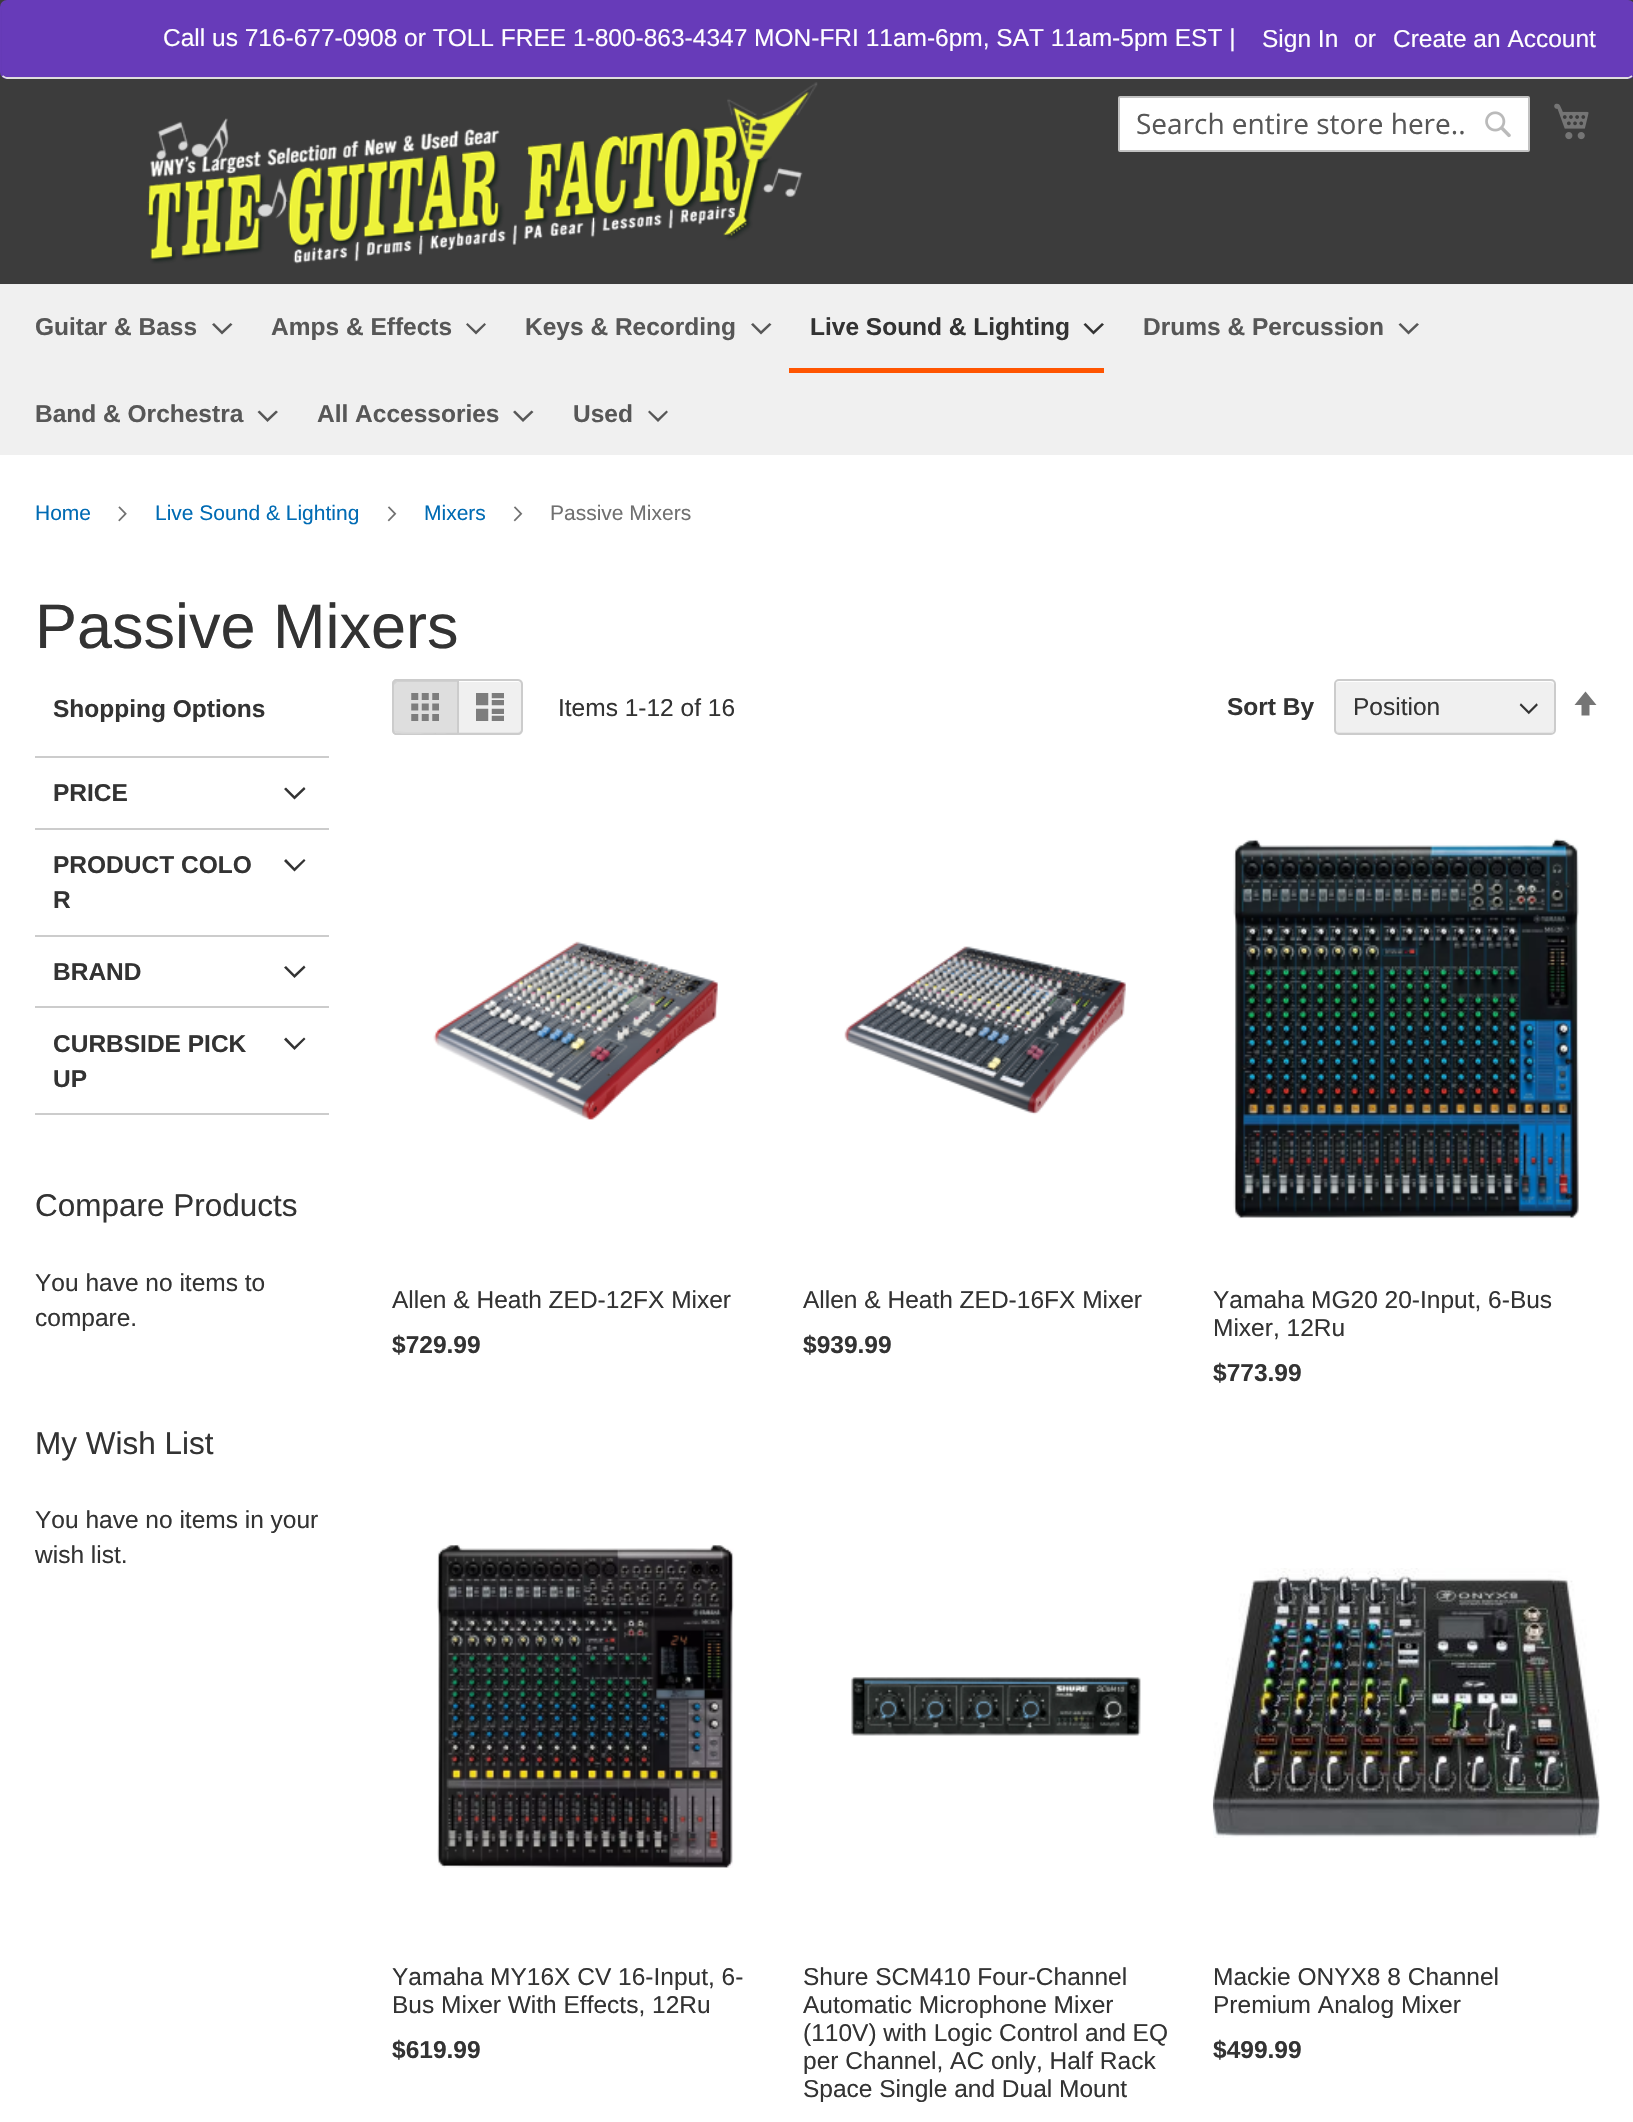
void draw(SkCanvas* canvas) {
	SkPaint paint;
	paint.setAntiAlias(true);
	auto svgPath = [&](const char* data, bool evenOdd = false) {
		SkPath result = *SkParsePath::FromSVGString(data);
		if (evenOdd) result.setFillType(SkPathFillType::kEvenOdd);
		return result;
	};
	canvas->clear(0xffffffff);
	paint.setColor(0xff3c3c3c);
	canvas->drawRect(SkRect::MakeXYWH(0, 0, 1633, 284), paint);
	paint.setColor(0xffeeeeee);
	canvas->drawRect(SkRect::MakeXYWH(0, 284, 1633, 1), paint);
	paint.setColor(0xff673bb9);
	canvas->drawRoundRect(SkRect::MakeXYWH(0, 0, 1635, 79), 7, 7, paint);
	paint.setStroke(true);
	paint.setStrokeWidth(1.8);
	paint.setColor(0xffe8e8e8);
	canvas->drawPath(svgPath("M1632 76C1630.5 77 1629 78 1627.5 78H7C5.5 78 4 77 2.5 76"), paint);
	paint.setStroke(false);
	paint.setColor(0x0d000000);
	paint.setMaskFilter(SkMaskFilter::MakeBlur(kNormal_SkBlurStyle, 1));
	canvas->drawRoundRect(SkRect::MakeXYWH(2, 4, 1631, 75), 7, 7, paint);
	paint.setMaskFilter(nullptr);
	paint.setColor(0xff673bb9);
	canvas->drawRoundRect(SkRect::MakeXYWH(2, 2, 1631, 75), 7, 7, paint);
	SkFont f1(fontMgr->matchFamilyStyle("Liberation Sans", SkFontStyle::Normal()), 24.5);
	f1.setSubpixel(true);
	paint.setColor(0xffffffff);
	canvas->drawString("Call us 716-677-0908 or TOLL FREE 1-800-863-4347 MON-FRI 11am-6pm, SAT 11am-5pm EST |", 163, 46, f1, paint);
	canvas->drawString("Sign In", 1262, 47, f1, paint);
	canvas->drawString("or", 1354, 47, f1, paint);
	canvas->drawString("Create an Account", 1393, 47, f1, paint);
	canvas->drawImageRect(SkImages::DeferredFromEncodedData(SkData::MakeFromFileName("img1.png")), SkRect::MakeXYWH(147, 82, 671, 182), SkSamplingOptions());
	canvas->drawRoundRect(SkRect::MakeXYWH(1119, 97, 410, 54), 1, 1, paint);
	paint.setStroke(true);
	paint.setStrokeWidth(2);
	paint.setColor(0xffc2c2c2);
	canvas->drawRoundRect(SkRect::MakeXYWH(1119, 97, 410, 54), 1, 1, paint);
	SkFont f2(fontMgr->matchFamilyStyle("Open Sans", SkFontStyle::Normal()), 28);
	f2.setSubpixel(true);
	paint.setStroke(false);
	paint.setColor(0xff575757);
	canvas->drawString("Search entire store here..", 1136, 134, f2, paint);
	canvas->drawImageRect(SkImages::DeferredFromEncodedData(SkData::MakeFromFileName("img2.png")), SkRect::MakeXYWH(1485, 111, 26, 27), SkSamplingOptions());
	canvas->drawImageRect(SkImages::DeferredFromEncodedData(SkData::MakeFromFileName("img3.png")), SkRect::MakeXYWH(1554, 103, 35, 37), SkSamplingOptions());
	paint.setColor(0xfff0f0f0);
	canvas->drawRect(SkRect::MakeXYWH(0, 285, 1633, 170), paint);
	SkFont f3(fontMgr->matchFamilyStyle("Liberation Sans", SkFontStyle::Bold()), 24.5);
	f3.setSubpixel(true);
	paint.setColor(0xff575757);
	canvas->drawString("Guitar & Bass", 35, 335, f3, paint);
	canvas->drawPath(svgPath("M222 331L214 323L212 324.5L222 334.5L232.5 324.5L230.5 323Z"), paint);
	canvas->drawString("Amps & Effects", 271, 335, f3, paint);
	canvas->drawPath(svgPath("M476 331L467.5 323L466 324.5L476 334.5L486 324.5L484.5 323Z"), paint);
	canvas->drawString("Keys & Recording", 525, 335, f3, paint);
	canvas->drawPath(svgPath("M761 331L753 323L751 324.5L761 334.5L771.5 324.5L769.5 323Z"), paint);
	paint.setColor(0xffff5501);
	canvas->drawRect(SkRect::MakeXYWH(789, 368, 315, 5), paint);
	paint.setColor(0xff333333);
	canvas->drawString("Live Sound & Lighting", 810, 335, f3, paint);
	canvas->drawPath(svgPath("M1093.5 331L1085.5 323L1083.5 324.5L1093.5 334.5L1104 324.5L1102 323Z"), paint);
	paint.setColor(0xff575757);
	canvas->drawString("Drums & Percussion", 1143, 335, f3, paint);
	canvas->drawPath(svgPath("M1408.5 331L1400.5 323L1398.5 324.5L1408.5 334.5L1419 324.5L1417 323Z"), paint);
	canvas->drawString("Band & Orchestra", 35, 422, f3, paint);
	canvas->drawPath(svgPath("M267.5 418.5L259.5 410.5L257.5 412L267.5 422L278 412L276 410.5Z"), paint);
	canvas->drawString("All Accessories", 317, 422, f3, paint);
	canvas->drawPath(svgPath("M523 418.5L515 410.5L513 412L523 422L533.5 412L531.5 410.5Z"), paint);
	canvas->drawString("Used", 573, 422, f3, paint);
	canvas->drawPath(svgPath("M658 418.5L649.5 410.5L648 412L658 422L668 412L666.5 410.5Z"), paint);
	SkFont f4(fontMgr->matchFamilyStyle("Liberation Sans", SkFontStyle::Normal()), 21);
	f4.setSubpixel(true);
	paint.setColor(0xff006bb4);
	canvas->drawString("Home", 35, 520, f4, paint);
	canvas->drawImageRect(SkImages::DeferredFromEncodedData(SkData::MakeFromFileName("img4.png")), SkRect::MakeXYWH(118, 506, 9, 16), SkSamplingOptions());
	canvas->drawString("Live Sound & Lighting", 155, 520, f4, paint);
	canvas->drawImageRect(SkImages::DeferredFromEncodedData(SkData::MakeFromFileName("img5.png")), SkRect::MakeXYWH(387, 506, 10, 16), SkSamplingOptions());
	canvas->drawString("Mixers", 424, 520, f4, paint);
	canvas->drawImageRect(SkImages::DeferredFromEncodedData(SkData::MakeFromFileName("img5.png")), SkRect::MakeXYWH(513, 506, 10, 16), SkSamplingOptions());
	paint.setColor(0xff707070);
	canvas->drawString("Passive Mixers", 550, 520, f4, paint);
	SkFont f5(fontMgr->matchFamilyStyle("Liberation Sans", SkFontStyle::Normal()), 63);
	f5.setSubpixel(true);
	paint.setColor(0xff333333);
	canvas->drawString("Passive Mixers", 35, 648, f5, paint);
	paint.setColor(0xffcccccc);
	canvas->drawRect(SkRect::MakeXYWH(35, 756, 294, 2), paint);
	paint.setColor(0xff333333);
	canvas->drawString("Shopping Options", 53, 717, f3, paint);
	paint.setColor(0xffcccccc);
	canvas->drawRect(SkRect::MakeXYWH(35, 828, 294, 2), paint);
	paint.setColor(0xff333333);
	canvas->drawString("PRICE", 53, 801, f3, paint);
	canvas->drawPath(svgPath("M294.5 796L286 787.5L284 789L294.5 799.5L305.5 789L304 787Z"), paint);
	paint.setColor(0xffcccccc);
	canvas->drawRect(SkRect::MakeXYWH(35, 935, 294, 2), paint);
	paint.setColor(0xff333333);
	canvas->drawString("PRODUCT COLO", 53, 873, f3, paint);
	canvas->drawPath(svgPath("M294.5 868L286 859L284 861L294.5 871.5L305.5 860.5L304 859Z"), paint);
	canvas->drawString("R", 53, 908, f3, paint);
	paint.setColor(0xffcccccc);
	canvas->drawRect(SkRect::MakeXYWH(35, 1006, 294, 2), paint);
	paint.setColor(0xff333333);
	canvas->drawString("BRAND", 53, 980, f3, paint);
	canvas->drawPath(svgPath("M294.5 974.5L286 966L284 967.5L294.5 978L305.5 967.5L304 965.5Z"), paint);
	paint.setColor(0xffcccccc);
	canvas->drawRect(SkRect::MakeXYWH(35, 1113, 294, 2), paint);
	paint.setColor(0xff333333);
	canvas->drawString("CURBSIDE PICK", 53, 1052, f3, paint);
	canvas->drawPath(svgPath("M294.5 1046.5L286 1037.5L284 1039.5L294.5 1050L305.5 1039L304 1037.5Z"), paint);
	canvas->drawString("UP", 53, 1087, f3, paint);
	paint.setColor(0xffdedede);
	canvas->drawPath(svgPath("M397 679H457V735H397C394 735 392 733 392 730V684C392 681 394 679 397 679Z"), paint);
	paint.setColor(0xffd9d9d9);
	canvas->drawPath(svgPath("M394 729C394 731 396 733 398 733H457V732H405L395 731Z"), paint);
	paint.setColor(0xffd0d0d0);
	canvas->drawPath(svgPath("M397 682H457V681H398C396 681 394 683 394 685Z"), paint);
	paint.setColor(0xffcccccc);
	canvas->drawPath(svgPath("M397 679H457V735H397C394 735 392 733 392 730V684C392 681 394 679 397 679ZM397 681H457V733C450 733 397 734 395 733L394 730V684L395 682Z", true), paint);
	canvas->drawImageRect(SkImages::DeferredFromEncodedData(SkData::MakeFromFileName("img6.png")), SkRect::MakeXYWH(411, 693, 28, 28), SkSamplingOptions());
	paint.setColor(0xfff0f0f0);
	canvas->drawPath(svgPath("M457 679H518C521 679 523 681 523 684V730C523 733 521 735 518 735H457Z"), paint);
	paint.setColor(0xffe5e5e5);
	canvas->drawPath(svgPath("M459 732V733H518C520 733 522 731 522 729V728C522 730 520 732 518 732Z"), paint);
	paint.setColor(0xffffffff);
	canvas->drawPath(svgPath("M459 681V682H518C520 682 522 684 522 686C522 683 521 681 518 681Z"), paint);
	paint.setStroke(true);
	paint.setColor(0xffcccccc);
	canvas->drawPath(svgPath("M458 680H518C520 680 522 682 522 684V730C522 732 520 734 518 734H458Z"), paint);
	canvas->drawImageRect(SkImages::DeferredFromEncodedData(SkData::MakeFromFileName("img7.png")), SkRect::MakeXYWH(476, 693, 28, 28), SkSamplingOptions());
	paint.setStroke(false);
	paint.setColor(0xff333333);
	canvas->drawString("Items 1-12 of 16", 558, 716, f1, paint);
	canvas->drawString("Sort By", 1227, 715, f3, paint);
	paint.setColor(0xfff0f0f0);
	canvas->drawRoundRect(SkRect::MakeXYWH(1335, 681, 219, 52), 4, 4, paint);
	canvas->drawImageRect(SkImages::DeferredFromEncodedData(SkData::MakeFromFileName("img8.png")), SkRect::MakeXYWH(1519, 703, 19, 12), SkSamplingOptions());
	paint.setColor(0x4dcccccc);
	canvas->drawPath(svgPath("M1335 728C1335 731 1336 733 1339 733H1552C1554 732 1554 730 1554 728C1554 730 1552 732 1550 732H1339C1337 732 1335 730 1335 728Z"), paint);
	paint.setColor(0xffffffff);
	canvas->drawPath(svgPath("M1339 682H1550C1552 682 1554 684 1554 686C1554 683 1553 681 1550 681H1337C1335 682 1335 684 1335 686C1335 684 1337 682 1339 682Z"), paint);
	paint.setStroke(true);
	paint.setColor(0xffcccccc);
	canvas->drawRoundRect(SkRect::MakeXYWH(1335, 680, 220, 54), 4, 4, paint);
	paint.setStroke(false);
	paint.setColor(0xff333333);
	canvas->drawString("Position", 1353, 715, f1, paint);
	paint.setColor(0xff757575);
	canvas->drawPath(svgPath("M1585.5 691.5L1574.5 705H1581.5V715.5H1589.5V705H1596.5Z"), paint);
	canvas->drawImageRect(SkImages::DeferredFromEncodedData(SkData::MakeFromFileName("img9.png")), SkRect::MakeXYWH(433, 941, 286, 179), SkSamplingOptions());
	paint.setColor(0xff333333);
	canvas->drawString("Allen & Heath ZED-12FX Mixer", 392, 1308, f1, paint);
	canvas->drawString("$729.99", 392, 1353, f3, paint);
	canvas->drawImageRect(SkImages::DeferredFromEncodedData(SkData::MakeFromFileName("img10.png")), SkRect::MakeXYWH(844, 946, 282, 169), SkSamplingOptions());
	canvas->drawString("Allen & Heath ZED-16FX Mixer", 803, 1308, f1, paint);
	canvas->drawString("$939.99", 803, 1353, f3, paint);
	canvas->drawImageRect(SkImages::DeferredFromEncodedData(SkData::MakeFromFileName("img11.png")), SkRect::MakeXYWH(1233, 838, 346, 381), SkSamplingOptions());
	canvas->drawString("Yamaha MG20 20-Input, 6-Bus", 1213, 1308, f1, paint);
	canvas->drawString("Mixer, 12Ru", 1213, 1336, f1, paint);
	canvas->drawString("$773.99", 1213, 1381, f3, paint);
	canvas->drawImageRect(SkImages::DeferredFromEncodedData(SkData::MakeFromFileName("img12.png")), SkRect::MakeXYWH(437, 1544, 297, 324), SkSamplingOptions());
	canvas->drawString("Yamaha MY16X CV 16-Input, 6-", 392, 1985, f1, paint);
	canvas->drawString("Bus Mixer With Effects, 12Ru", 392, 2013, f1, paint);
	canvas->drawString("$619.99", 392, 2058, f3, paint);
	canvas->drawImageRect(SkImages::DeferredFromEncodedData(SkData::MakeFromFileName("img13.png")), SkRect::MakeXYWH(851, 1677, 290, 59), SkSamplingOptions());
	canvas->drawString("Shure SCM410 Four-Channel", 803, 1985, f1, paint);
	canvas->drawString("Automatic Microphone Mixer", 803, 2013, f1, paint);
	canvas->drawString("(110V) with Logic Control and EQ", 803, 2041, f1, paint);
	canvas->drawString("per Channel, AC only, Half Rack", 803, 2069, f1, paint);
	canvas->drawString("Space Single and Dual Mount", 803, 2097, f1, paint);
	canvas->drawImageRect(SkImages::DeferredFromEncodedData(SkData::MakeFromFileName("img14.png")), SkRect::MakeXYWH(1212, 1568, 388, 270), SkSamplingOptions());
	canvas->drawString("Mackie ONYX8 8 Channel", 1213, 1985, f1, paint);
	canvas->drawString("Premium Analog Mixer", 1213, 2013, f1, paint);
	canvas->drawString("$499.99", 1213, 2058, f3, paint);
	SkFont f6(fontMgr->matchFamilyStyle("Liberation Sans", SkFontStyle::Normal()), 31.5);
	f6.setSubpixel(true);
	canvas->drawString("Compare Products", 35, 1216, f6, paint);
	canvas->drawString("You have no items to", 35, 1291, f1, paint);
	canvas->drawString("compare.", 35, 1326, f1, paint);
	canvas->drawString("My Wish List", 35, 1454, f6, paint);
	canvas->drawString("You have no items in your", 35, 1528, f1, paint);
	canvas->drawString("wish list.", 35, 1563, f1, paint);
}
